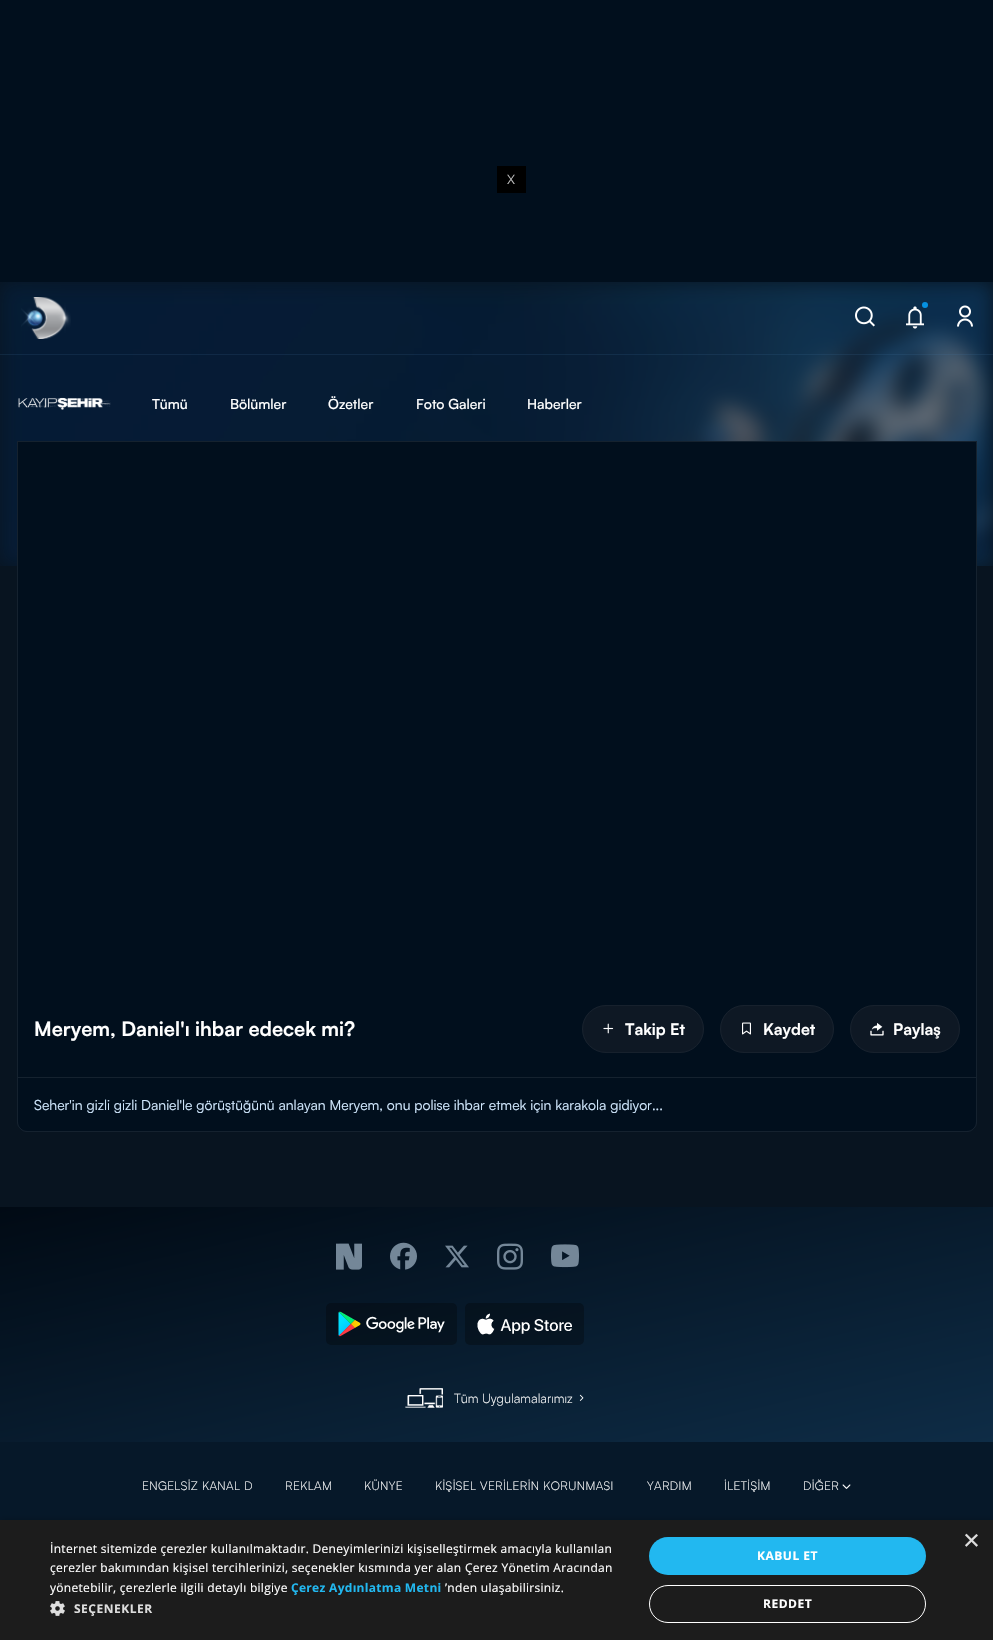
void draw(SkCanvas* canvas) {
	SkPaint paint;
	paint.setAntiAlias(true);
	auto spacedText = [&](const char* s, float x, float y, const SkFont& font, const SkPaint& ink, float letter, float word) {
		std::vector<SkGlyphID> glyphs(font.countText(s, strlen(s), SkTextEncoding::kUTF8));
		std::vector<float> xs(glyphs.size());
		font.textToGlyphs(s, strlen(s), SkTextEncoding::kUTF8, glyphs);
		font.getXPos(glyphs, xs, x);
		float extra = 0;
		for (size_t i = 0; i < glyphs.size(); i++) {
			xs[i] += extra;
			extra += letter + word * (glyphs[i] == font.unicharToGlyph(' '));
		}
		canvas->drawTextBlob(SkTextBlob::MakeFromPosHGlyphs(glyphs, xs, y, font), 0, 0, ink);
	};
	auto svgPath = [&](const char* data, bool evenOdd = false) {
		SkPath result = *SkParsePath::FromSVGString(data);
		if (evenOdd) result.setFillType(SkPathFillType::kEvenOdd);
		return result;
	};
	canvas->clear(0xff081420);
	paint.setColor(0xff010f1d);
	canvas->drawRect(SkRect::MakeXYWH(0, 0, 993, 282), paint);
	paint.setColor(0xff000000);
	canvas->drawRect(SkRect::MakeXYWH(497, 166, 29, 27), paint);
	SkFont f1(fontMgr->matchFamilyStyle("Satoshi", SkFontStyle::Normal()), 13);
	f1.setSubpixel(true);
	paint.setColor(0xffbebebe);
	canvas->drawString("X", 507, 184, f1, paint);
	canvas->drawImageRect(SkImages::DeferredFromEncodedData(SkData::MakeFromFileName("img1.png")), SkRect::MakeXYWH(0, 282, 993, 284), SkSamplingOptions());
	paint.setColor(0x264677a7);
	canvas->drawRect(SkRect::MakeXYWH(0, 354, 993, 1), paint);
	canvas->drawImageRect(SkImages::DeferredFromEncodedData(SkData::MakeFromFileName("img2.png")), SkRect::MakeXYWH(21, 297, 50, 42), SkSamplingOptions());
	canvas->drawImageRect(SkImages::DeferredFromEncodedData(SkData::MakeFromFileName("img3.png")), SkRect::MakeXYWH(855, 306, 20, 21), SkSamplingOptions());
	canvas->drawImageRect(SkImages::DeferredFromEncodedData(SkData::MakeFromFileName("img4.png")), SkRect::MakeXYWH(906, 306, 18, 23), SkSamplingOptions());
	paint.setColor(0xff0591e2);
	canvas->drawCircle(925, 305, 3, paint);
	canvas->drawImageRect(SkImages::DeferredFromEncodedData(SkData::MakeFromFileName("img5.png")), SkRect::MakeXYWH(957, 305, 16, 22), SkSamplingOptions());
	canvas->drawImageRect(SkImages::DeferredFromEncodedData(SkData::MakeFromFileName("img6.png")), SkRect::MakeXYWH(17, 397, 94, 13), SkSamplingOptions());
	SkFont f2(fontMgr->matchFamilyStyle("Satoshi", SkFontStyle(500, SkFontStyle::kNormal_Width, SkFontStyle::kUpright_Slant)), 14);
	f2.setSubpixel(true);
	paint.setColor(0xffffffff);
	canvas->drawString("Tümü", 152, 409, f2, paint);
	canvas->drawString("Bölümler", 230, 409, f2, paint);
	canvas->drawString("Özetler", 328, 409, f2, paint);
	canvas->drawString("Foto Galeri", 416, 409, f2, paint);
	canvas->drawString("Haberler", 527, 409, f2, paint);
	paint.setColor(0xff010f1d);
	canvas->drawPath(svgPath("M17 441H977V1122C977 1127.5 972.5 1132 967 1132H27C21.5 1132 17 1127.5 17 1122Z"), paint);
	paint.setStroke(true);
	paint.setStrokeWidth(1);
	paint.setColor(0x14ffffff);
	canvas->drawPath(svgPath("M17.5 441.5H976.5V1122C976.5 1127 972 1131.5 967 1131.5H27C22 1131.5 17.5 1127 17.5 1122Z"), paint);
	SkFont f3(fontMgr->matchFamilyStyle("Satoshi", SkFontStyle::Bold()), 20);
	f3.setSubpixel(true);
	paint.setStroke(false);
	paint.setColor(0xffffffff);
	canvas->drawString("Meryem, Daniel'ı ihbar edecek mi?", 34, 1036, f3, paint);
	paint.setColor(0xff0e1824);
	canvas->drawRoundRect(SkRect::MakeXYWH(582.5, 1005.5, 121, 47), 23.5, 23.5, paint);
	paint.setStroke(true);
	paint.setColor(0xff17212d);
	canvas->drawRoundRect(SkRect::MakeXYWH(582.5, 1005.5, 121, 47), 23.5, 23.5, paint);
	canvas->drawImageRect(SkImages::DeferredFromEncodedData(SkData::MakeFromFileName("img7.png")), SkRect::MakeXYWH(603, 1023, 11, 11), SkSamplingOptions());
	SkFont f4(fontMgr->matchFamilyStyle("Satoshi", SkFontStyle::Bold()), 16);
	f4.setSubpixel(true);
	paint.setStroke(false);
	paint.setColor(0xffffffff);
	canvas->drawString("Takip Et", 625, 1035, f4, paint);
	paint.setColor(0xff0e1824);
	canvas->drawRoundRect(SkRect::MakeXYWH(720.5, 1005.5, 113, 47), 23.5, 23.5, paint);
	paint.setStroke(true);
	paint.setColor(0xff17212d);
	canvas->drawRoundRect(SkRect::MakeXYWH(720.5, 1005.5, 113, 47), 23.5, 23.5, paint);
	canvas->drawImageRect(SkImages::DeferredFromEncodedData(SkData::MakeFromFileName("img8.png")), SkRect::MakeXYWH(742, 1022, 9, 13), SkSamplingOptions());
	paint.setStroke(false);
	paint.setColor(0xffffffff);
	canvas->drawString("Kaydet", 763, 1035, f4, paint);
	paint.setColor(0xff0e1824);
	canvas->drawRoundRect(SkRect::MakeXYWH(850.5, 1005.5, 109, 47), 23.5, 23.5, paint);
	paint.setStroke(true);
	paint.setColor(0xff17212d);
	canvas->drawRoundRect(SkRect::MakeXYWH(850.5, 1005.5, 109, 47), 23.5, 23.5, paint);
	canvas->drawImageRect(SkImages::DeferredFromEncodedData(SkData::MakeFromFileName("img9.png")), SkRect::MakeXYWH(870, 1023, 14, 13), SkSamplingOptions());
	paint.setStroke(false);
	paint.setColor(0xffffffff);
	canvas->drawString("Paylaş", 893, 1035, f4, paint);
	paint.setColor(0xff15222f);
	canvas->drawRect(SkRect::MakeXYWH(18, 1077, 958, 1), paint);
	SkFont f5(fontMgr->matchFamilyStyle("Satoshi", SkFontStyle::Normal()), 14);
	f5.setSubpixel(true);
	paint.setColor(0xffd2e9ff);
	canvas->drawString("Seher'in gizli gizli Daniel'le görüştüğünü anlayan Meryem, onu polise ihbar etmek için karakola gidiyor...", 34, 1110, f5, paint);
	paint.setColor(0xff061829);
	canvas->drawRect(SkRect::MakeXYWH(0, 1442, 993, 78), paint);
	{
		const SkColor colors[] = {0xff010a14, 0xff0e2c46};
		const float stops[] = {0, 1};
		const SkPoint ends[] = {{446, 1104}, {547, 1545}};
		paint.setShader(SkGradientShader::MakeLinear(ends, colors, stops, 2, SkTileMode::kClamp));
		paint.setAlpha(255);
	}
	canvas->drawRect(SkRect::MakeXYWH(0, 1207, 993, 235), paint);
	canvas->drawImageRect(SkImages::DeferredFromEncodedData(SkData::MakeFromFileName("img10.png")), SkRect::MakeXYWH(336, 1243, 26, 27), SkSamplingOptions());
	canvas->drawImageRect(SkImages::DeferredFromEncodedData(SkData::MakeFromFileName("img11.png")), SkRect::MakeXYWH(390, 1242, 27, 28), SkSamplingOptions());
	canvas->drawImageRect(SkImages::DeferredFromEncodedData(SkData::MakeFromFileName("img12.png")), SkRect::MakeXYWH(445, 1245, 24, 23), SkSamplingOptions());
	canvas->drawImageRect(SkImages::DeferredFromEncodedData(SkData::MakeFromFileName("img13.png")), SkRect::MakeXYWH(497, 1243, 26, 27), SkSamplingOptions());
	canvas->drawImageRect(SkImages::DeferredFromEncodedData(SkData::MakeFromFileName("img14.png")), SkRect::MakeXYWH(551, 1244, 28, 24), SkSamplingOptions());
	paint.setShader(nullptr);
	paint.setColor(0x4d000000);
	canvas->drawRoundRect(SkRect::MakeXYWH(326, 1303, 131, 42), 5, 5, paint);
	canvas->drawImageRect(SkImages::DeferredFromEncodedData(SkData::MakeFromFileName("img15.png")), SkRect::MakeXYWH(338, 1311, 107, 26), SkSamplingOptions());
	canvas->drawRoundRect(SkRect::MakeXYWH(465, 1303, 119, 42), 5, 5, paint);
	canvas->drawImageRect(SkImages::DeferredFromEncodedData(SkData::MakeFromFileName("img16.png")), SkRect::MakeXYWH(477, 1313, 95, 22), SkSamplingOptions());
	canvas->drawImageRect(SkImages::DeferredFromEncodedData(SkData::MakeFromFileName("img17.png")), SkRect::MakeXYWH(405, 1388, 38, 20), SkSamplingOptions());
	SkFont f6(fontMgr->matchFamilyStyle("Satoshi", SkFontStyle(300, SkFontStyle::kNormal_Width, SkFontStyle::kUpright_Slant)), 13);
	f6.setSubpixel(true);
	paint.setColor(0xffffffff);
	canvas->drawString("Tüm Uygulamalarımız", 454, 1403, f6, paint);
	canvas->drawImageRect(SkImages::DeferredFromEncodedData(SkData::MakeFromFileName("img18.png")), SkRect::MakeXYWH(579, 1394, 5, 7), SkSamplingOptions());
	SkFont f7(fontMgr->matchFamilyStyle("Satoshi", SkFontStyle(300, SkFontStyle::kNormal_Width, SkFontStyle::kUpright_Slant)), 12);
	f7.setSubpixel(true);
	spacedText("ENGELSİZ KANAL D", 142, 1490, f7, paint, 0.4, 0);
	spacedText("REKLAM", 285, 1490, f7, paint, 0.4, 0);
	spacedText("KÜNYE", 364, 1490, f7, paint, 0.4, 0);
	spacedText("KİŞİSEL VERİLERİN KORUNMASI", 435, 1490, f7, paint, 0.4, 0);
	spacedText("YARDIM", 647, 1490, f7, paint, 0.4, 0);
	spacedText("İLETİŞİM", 724, 1490, f7, paint, 0.4, 0);
	spacedText("DİĞER", 803, 1490, f7, paint, 0.4, 0);
	canvas->drawImageRect(SkImages::DeferredFromEncodedData(SkData::MakeFromFileName("img19.png")), SkRect::MakeXYWH(842, 1484, 9, 5), SkSamplingOptions());
	paint.setColor(0x59000000);
	paint.setMaskFilter(SkMaskFilter::MakeBlur(kNormal_SkBlurStyle, 4));
	canvas->drawRect(SkRect::MakeXYWH(1, 1522, 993, 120), paint);
	paint.setMaskFilter(nullptr);
	paint.setColor(0xff1c1c1c);
	canvas->drawRect(SkRect::MakeXYWH(0, 1520, 993, 120), paint);
	SkFont f8(fontMgr->matchFamilyStyle("Liberation Sans", SkFontStyle::Normal()), 29);
	f8.setSubpixel(true);
	paint.setColor(0xffdddddd);
	canvas->drawString("×", 963, 1550, f8, paint);
	SkFont f9(fontMgr->matchFamilyStyle("Open Sans", SkFontStyle::Normal()), 12);
	f9.setSubpixel(true);
	paint.setColor(0xffffffff);
	spacedText("İnternet sitemizde çerezler kullanılmaktadır. Deneyimlerinizi kişiselleştirmek amacıyla kullanılan", 50, 1553, f9, paint, 0.3, 0);
	spacedText("çerezler bakımından kişisel tercihlerinizi, seçenekler kısmında yer alan Çerez Yönetim Aracından", 50, 1572, f9, paint, 0.3, 0);
	spacedText("yönetebilir, çerezlerle ilgili detaylı bilgiye", 50, 1592, f9, paint, 0.3, 0);
	SkFont f10(fontMgr->matchFamilyStyle("Open Sans", SkFontStyle::Bold()), 12);
	f10.setSubpixel(true);
	paint.setColor(0xff22b8f0);
	spacedText("Çerez Aydınlatma Metni", 291, 1592, f10, paint, 0.3, 0);
	paint.setColor(0xffffffff);
	spacedText("’nden ulaşabilirsiniz.", 445, 1592, f9, paint, 0.3, 0);
	canvas->drawImageRect(SkImages::DeferredFromEncodedData(SkData::MakeFromFileName("img20.png")), SkRect::MakeXYWH(50, 1601, 15, 15), SkSamplingOptions());
	paint.setColor(0xffdddddd);
	spacedText("SEÇENEKLER", 74, 1613, f10, paint, 0.5, 0);
	paint.setColor(0xff22b8f0);
	canvas->drawRoundRect(SkRect::MakeXYWH(649, 1537, 277, 38), 19, 19, paint);
	paint.setColor(0xffffffff);
	spacedText("KABUL ET", 757, 1560, f10, paint, 0.5, 0);
	paint.setStroke(true);
	canvas->drawRoundRect(SkRect::MakeXYWH(649.5, 1585.5, 276, 37), 18.5, 18.5, paint);
	paint.setStroke(false);
	spacedText("REDDET", 763, 1608, f10, paint, 0.5, 0);
}
